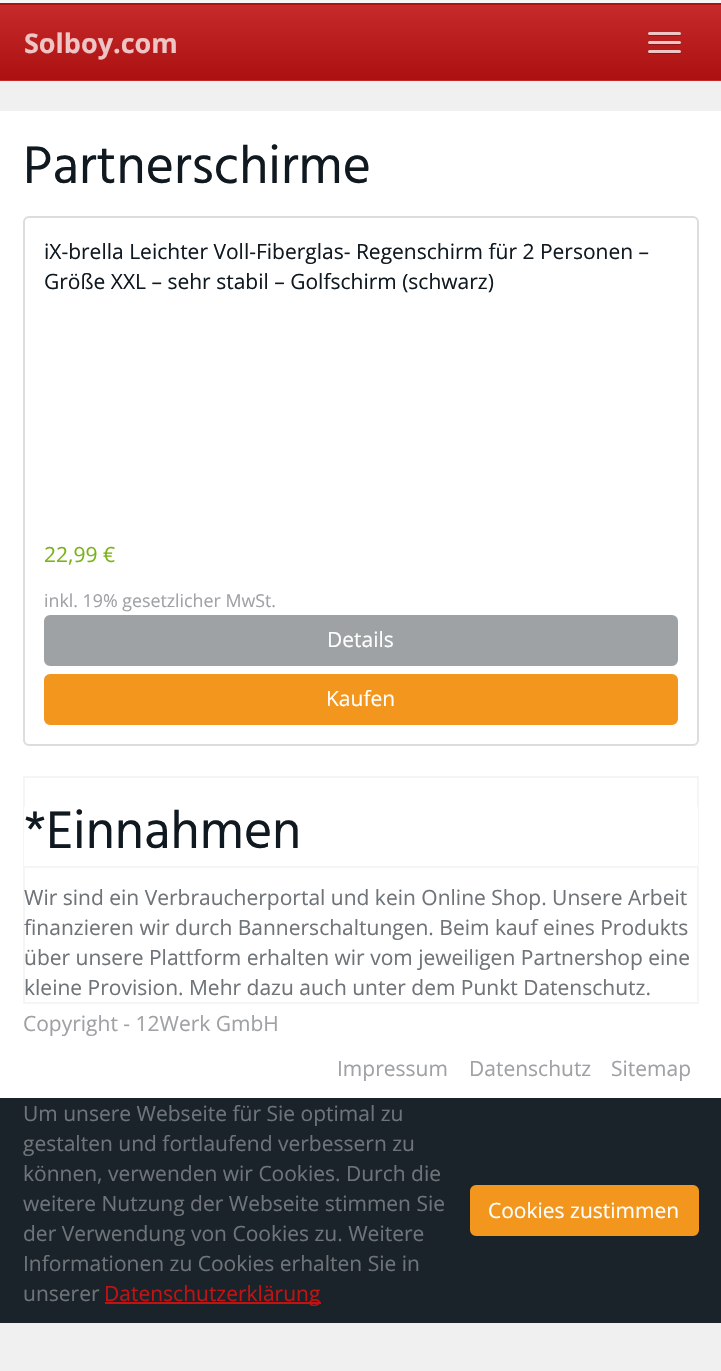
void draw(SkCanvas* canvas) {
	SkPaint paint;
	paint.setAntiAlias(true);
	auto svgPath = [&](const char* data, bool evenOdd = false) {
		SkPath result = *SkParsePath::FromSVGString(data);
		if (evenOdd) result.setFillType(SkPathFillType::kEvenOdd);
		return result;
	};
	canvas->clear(0xfff0f0f0);
	paint.setColor(0xfff5f5f5);
	canvas->drawRect(SkRect::MakeXYWH(0, 0, 721, 3), paint);
	{
		const SkColor colors[] = {0xffc62a2a, 0xffac1111};
		const float stops[] = {0, 1};
		const SkPoint ends[] = {{361, -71}, {361, 4.5}};
		paint.setShader(SkGradientShader::MakeLinear(ends, colors, stops, 2, SkTileMode::kClamp));
		paint.setAlpha(255);
	}
	canvas->drawRect(SkRect::MakeXYWH(0, 3, 721, 2), paint);
	{
		const SkColor colors[] = {0xffc62a2a, 0xffac1111};
		const float stops[] = {0, 1};
		const SkPoint ends[] = {{361, 4.5}, {361, 80}};
		paint.setShader(SkGradientShader::MakeLinear(ends, colors, stops, 2, SkTileMode::kClamp));
		paint.setAlpha(255);
	}
	canvas->drawRect(SkRect::MakeXYWH(0, 5, 721, 75), paint);
	{
		const SkColor colors[] = {0xffc62a2a, 0xffac1111};
		const float stops[] = {0, 1};
		const SkPoint ends[] = {{361, 79}, {361, 155}};
		paint.setShader(SkGradientShader::MakeLinear(ends, colors, stops, 2, SkTileMode::kClamp));
		paint.setAlpha(255);
	}
	canvas->drawRect(SkRect::MakeXYWH(0, 80, 721, 1), paint);
	SkFont f1(fontMgr->matchFamilyStyle("Open Sans", SkFontStyle::Bold()), 27);
	f1.setSubpixel(true);
	paint.setShader(nullptr);
	paint.setColor(0xffefc4c4);
	canvas->drawString("Solboy.com", 24, 53, f1, paint);
	paint.setColor(0xff8c1818);
	canvas->drawPath(svgPath("M648 33.5C646.5 36.5 651 36 654.5 36H674.5C678 36 682.5 36.5 681 33.5L679.5 34.5H649.5Z"), paint);
	paint.setColor(0xffefc4c4);
	canvas->drawRoundRect(SkRect::MakeXYWH(648, 32, 33, 3), 1.5, 1.5, paint);
	paint.setColor(0xff8a1616);
	canvas->drawPath(svgPath("M648 42.5C646.5 45.5 651 45 654.5 45H674.5C678 45 682.5 45.5 681 42.5L679.5 43.5H649.5Z"), paint);
	paint.setColor(0xffefc4c4);
	canvas->drawRoundRect(SkRect::MakeXYWH(648, 41, 33, 3), 1.5, 1.5, paint);
	paint.setColor(0xff881414);
	canvas->drawPath(svgPath("M648 51.5C646.5 54.5 651 54 654.5 54H674.5C678 54 682.5 54.5 681 51.5L679.5 52.5H649.5Z"), paint);
	paint.setColor(0xffefc4c4);
	canvas->drawRoundRect(SkRect::MakeXYWH(648, 50, 33, 3), 1.5, 1.5, paint);
	paint.setColor(0xffffffff);
	canvas->drawRect(SkRect::MakeXYWH(0, 111, 721, 987), paint);
	SkFont f2(fontMgr->matchFamilyStyle("Hind", SkFontStyle::Normal()), 54);
	f2.setSubpixel(true);
	paint.setColor(0xff101820);
	canvas->drawString("Partnerschirme", 23, 183, f2, paint);
	paint.setStroke(true);
	paint.setStrokeWidth(2);
	paint.setColor(0xffdddddd);
	canvas->drawRoundRect(SkRect::MakeXYWH(24, 217, 674, 528), 5, 5, paint);
	SkFont f3(fontMgr->matchFamilyStyle("Open Sans", SkFontStyle::Normal()), 21);
	f3.setSubpixel(true);
	paint.setStroke(false);
	paint.setColor(0xff101820);
	canvas->drawString("iX-brella Leichter Voll-Fiberglas- Regenschirm für 2 Personen –", 44, 259, f3, paint);
	canvas->drawString("Größe XXL – sehr stabil – Golfschirm (schwarz)", 44, 289, f3, paint);
	paint.setColor(0xff7ab317);
	canvas->drawString("22,99 €", 44, 562, f3, paint);
	SkFont f4(fontMgr->matchFamilyStyle("Open Sans", SkFontStyle::Normal()), 17.8);
	f4.setSubpixel(true);
	paint.setColor(0xff9fa2a5);
	canvas->drawString("inkl. 19% gesetzlicher MwSt.", 44, 607, f4, paint);
	canvas->drawRoundRect(SkRect::MakeXYWH(45, 616, 632, 49), 5, 5, paint);
	paint.setStroke(true);
	canvas->drawRoundRect(SkRect::MakeXYWH(45, 616, 632, 49), 5, 5, paint);
	paint.setStroke(false);
	paint.setColor(0xffffffff);
	canvas->drawString("Details", 327, 647, f3, paint);
	paint.setColor(0xfff3961d);
	canvas->drawRoundRect(SkRect::MakeXYWH(45, 675, 632, 49), 5, 5, paint);
	paint.setStroke(true);
	canvas->drawRoundRect(SkRect::MakeXYWH(45, 675, 632, 49), 5, 5, paint);
	paint.setStroke(false);
	paint.setColor(0xffffffff);
	canvas->drawString("Kaufen", 326, 706, f3, paint);
	paint.setStroke(true);
	paint.setColor(0xfff5f5f5);
	canvas->drawRect(SkRect::MakeXYWH(24, 777, 674, 226), paint);
	paint.setStroke(false);
	paint.setColor(0xffffffff);
	canvas->drawRect(SkRect::MakeXYWH(24, 807, 674, 59), paint);
	paint.setColor(0xfff5f5f5);
	canvas->drawRect(SkRect::MakeXYWH(24, 866, 674, 2), paint);
	paint.setColor(0xff101820);
	canvas->drawString("*Einnahmen", 24, 848, f2, paint);
	paint.setColor(0xff6f7479);
	canvas->drawString("Wir sind ein Verbraucherportal und kein Online Shop. Unsere Arbeit", 24, 905, f3, paint);
	canvas->drawString("finanzieren wir durch Bannerschaltungen. Beim kauf eines Produkts", 24, 935, f3, paint);
	canvas->drawString("über unsere Plattform erhalten wir vom jeweiligen Partnershop eine", 24, 965, f3, paint);
	canvas->drawString("kleine Provision. Mehr dazu auch unter dem Punkt Datenschutz.", 24, 995, f3, paint);
	paint.setColor(0xff9fa2a5);
	canvas->drawString("Copyright - 12Werk GmbH", 23, 1031, f3, paint);
	canvas->drawString("Impressum", 337, 1076, f3, paint);
	canvas->drawString("Datenschutz", 469, 1076, f3, paint);
	canvas->drawString("Sitemap", 611, 1076, f3, paint);
	paint.setColor(0xff1b232a);
	canvas->drawRect(SkRect::MakeXYWH(0, 1098, 721, 225), paint);
	paint.setColor(0xff6f7479);
	canvas->drawString("Um unsere Webseite für Sie optimal zu", 23, 1121, f3, paint);
	canvas->drawString("gestalten und fortlaufend verbessern zu", 23, 1151, f3, paint);
	canvas->drawString("können, verwenden wir Cookies. Durch die", 23, 1181, f3, paint);
	canvas->drawString("weitere Nutzung der Webseite stimmen Sie", 23, 1211, f3, paint);
	canvas->drawString("der Verwendung von Cookies zu. Weitere", 23, 1241, f3, paint);
	canvas->drawString("Informationen zu Cookies erhalten Sie in", 23, 1271, f3, paint);
	canvas->drawString("unserer", 23, 1301, f3, paint);
	paint.setColor(0xffc01313);
	canvas->drawRect(SkRect::MakeXYWH(105, 1302, 216, 2), paint);
	canvas->drawString("Datenschutzerklärung", 104, 1301, f3, paint);
	paint.setColor(0xfff3961d);
	canvas->drawRoundRect(SkRect::MakeXYWH(471, 1186, 227, 49), 5, 5, paint);
	paint.setStroke(true);
	canvas->drawRoundRect(SkRect::MakeXYWH(471, 1186, 227, 49), 5, 5, paint);
	paint.setStroke(false);
	paint.setColor(0xffffffff);
	canvas->drawString("Cookies zustimmen", 488, 1218, f3, paint);
}
